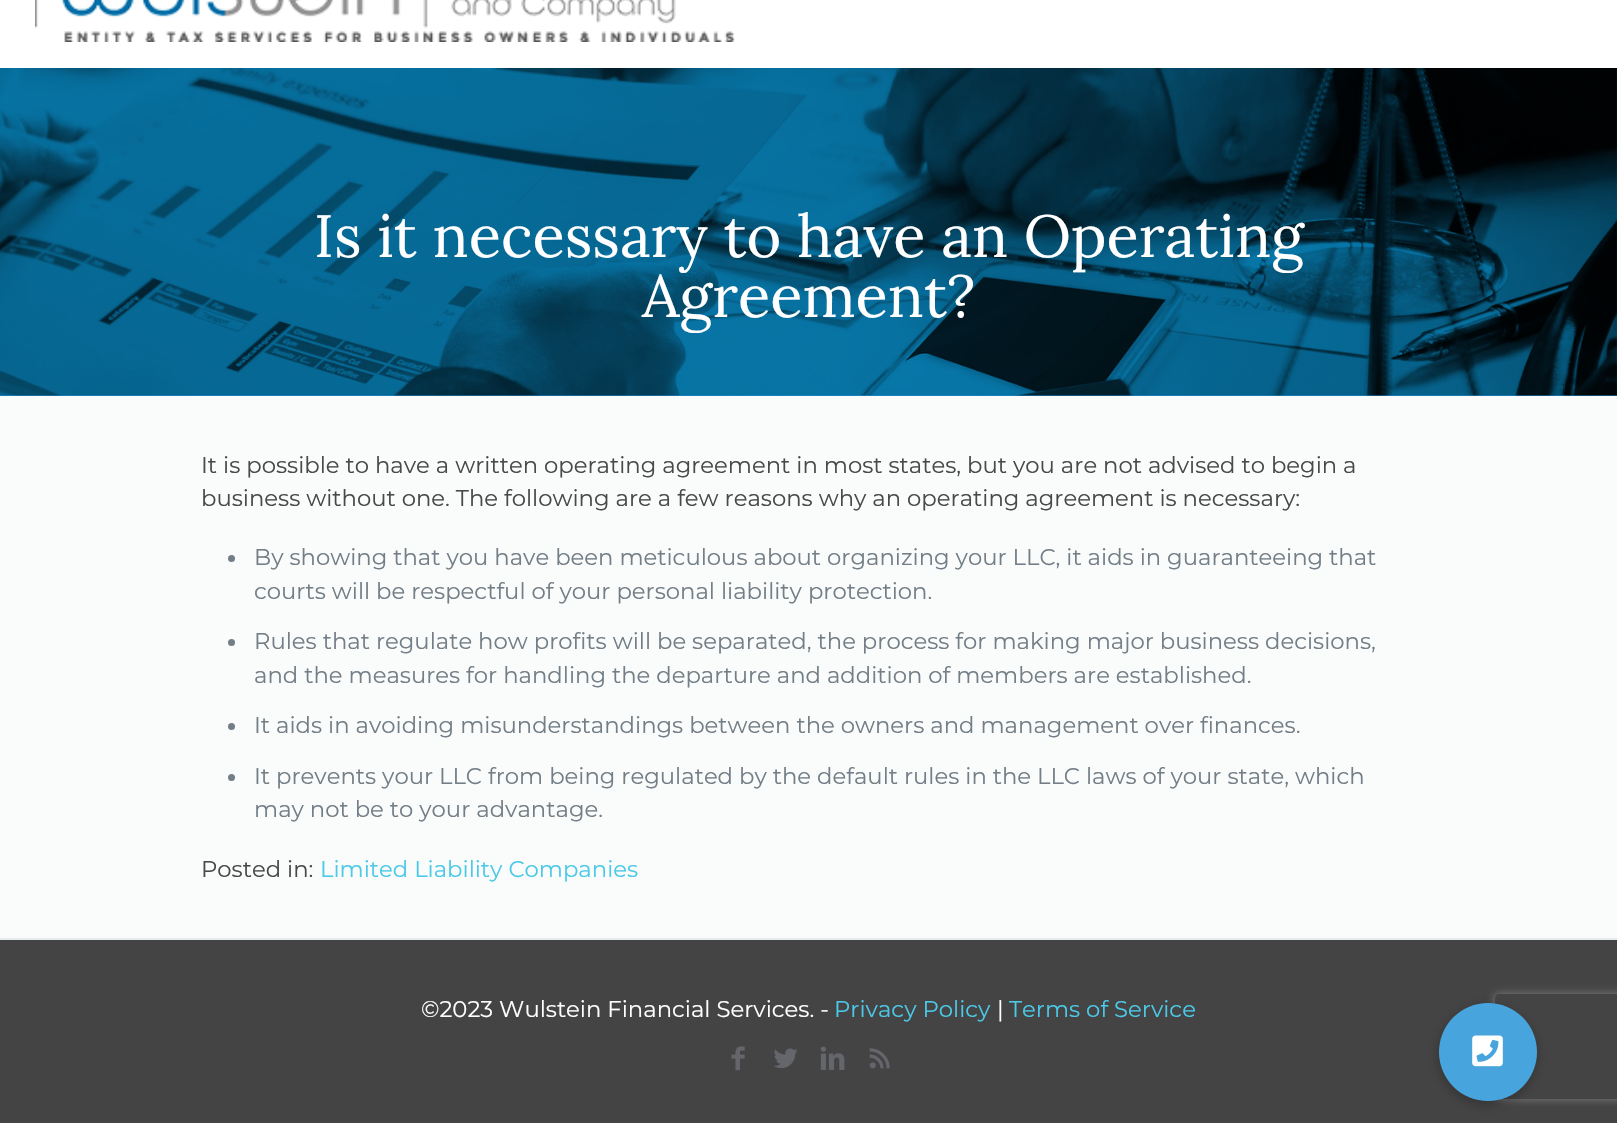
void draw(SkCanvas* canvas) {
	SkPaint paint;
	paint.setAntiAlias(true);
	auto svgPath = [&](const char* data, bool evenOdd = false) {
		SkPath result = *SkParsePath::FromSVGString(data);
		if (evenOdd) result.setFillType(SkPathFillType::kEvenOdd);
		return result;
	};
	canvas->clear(0xfffafcfc);
	paint.setColor(0xff2991d6);
	canvas->drawRect(SkRect::MakeXYWH(0, 395, 1617, 1), paint);
	canvas->drawImageRect(SkImages::DeferredFromEncodedData(SkData::MakeFromFileName("img1.png")), SkRect::MakeXYWH(0, 68, 1617, 328), SkSamplingOptions());
	paint.setColor(0xffffffff);
	canvas->drawRect(SkRect::MakeXYWH(0, 0, 1617, 68), paint);
	canvas->drawImageRect(SkImages::DeferredFromEncodedData(SkData::MakeFromFileName("img2.png")), SkRect::MakeXYWH(35, 0, 700, 42), SkSamplingOptions());
	SkFont f1(fontMgr->matchFamilyStyle("Lora", SkFontStyle::Normal()), 59.5);
	f1.setSubpixel(true);
	canvas->drawString("Is it necessary to have an Operating", 314, 257, f1, paint);
	canvas->drawString("Agreement?", 642, 317, f1, paint);
	SkFont f2(fontMgr->matchFamilyStyle("Montserrat", SkFontStyle::Normal()), 22.75);
	f2.setSubpixel(true);
	paint.setColor(0xff494949);
	canvas->drawString("It is possible to have a written operating agreement in most states, but you are not advised to begin a", 201, 473, f2, paint);
	canvas->drawString("business without one. The following are a few reasons why an operating agreement is necessary:", 201, 506, f2, paint);
	paint.setColor(0xff737e86);
	canvas->drawCircle(231.5, 558.5, 3.5, paint);
	canvas->drawString("By showing that you have been meticulous about organizing your LLC, it aids in guaranteeing that", 254, 565, f2, paint);
	canvas->drawString("courts will be respectful of your personal liability protection.", 254, 599, f2, paint);
	canvas->drawCircle(231.5, 642.5, 3.5, paint);
	canvas->drawString("Rules that regulate how profits will be separated, the process for making major business decisions,", 254, 649, f2, paint);
	canvas->drawString("and the measures for handling the departure and addition of members are established.", 254, 683, f2, paint);
	canvas->drawCircle(231.5, 726.5, 3.5, paint);
	canvas->drawString("It aids in avoiding misunderstandings between the owners and management over finances.", 254, 733, f2, paint);
	canvas->drawCircle(231.5, 777.5, 3.5, paint);
	canvas->drawString("It prevents your LLC from being regulated by the default rules in the LLC laws of your state, which", 254, 784, f2, paint);
	canvas->drawString("may not be to your advantage.", 254, 817, f2, paint);
	paint.setColor(0xff494949);
	canvas->drawString("Posted in:", 201, 877, f2, paint);
	paint.setColor(0xff4bc9e8);
	canvas->drawString("Limited Liability Companies", 320, 877, f2, paint);
	paint.setColor(0xff444444);
	canvas->drawRect(SkRect::MakeXYWH(0, 940, 1617, 183), paint);
	paint.setColor(0xffe4ecee);
	canvas->drawRect(SkRect::MakeXYWH(0, 938, 1617, 2), paint);
	paint.setColor(0xffffffff);
	canvas->drawString("©2023 Wulstein Financial Services. -", 421, 1017, f2, paint);
	paint.setColor(0xff4bc9e8);
	canvas->drawString("Privacy Policy", 834, 1017, f2, paint);
	paint.setColor(0xffffffff);
	canvas->drawString("|", 997, 1017, f2, paint);
	paint.setColor(0xff4bc9e8);
	canvas->drawString("Terms of Service", 1009, 1017, f2, paint);
	canvas->drawImageRect(SkImages::DeferredFromEncodedData(SkData::MakeFromFileName("img3.png")), SkRect::MakeXYWH(731, 1046, 14, 25), SkSamplingOptions());
	canvas->drawImageRect(SkImages::DeferredFromEncodedData(SkData::MakeFromFileName("img4.png")), SkRect::MakeXYWH(774, 1048, 24, 20), SkSamplingOptions());
	canvas->drawImageRect(SkImages::DeferredFromEncodedData(SkData::MakeFromFileName("img5.png")), SkRect::MakeXYWH(820, 1046, 25, 24), SkSamplingOptions());
	canvas->drawImageRect(SkImages::DeferredFromEncodedData(SkData::MakeFromFileName("img6.png")), SkRect::MakeXYWH(869, 1048, 21, 21), SkSamplingOptions());
	canvas->save();
	canvas->clipPath(svgPath("M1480 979H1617V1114H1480ZM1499 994H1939C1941 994 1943 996 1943 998V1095C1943 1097 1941 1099 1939 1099H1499C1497 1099 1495 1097 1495 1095V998C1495 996 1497 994 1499 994Z", true), true);
	paint.setColor(0xff808080);
	paint.setMaskFilter(SkMaskFilter::MakeBlur(kNormal_SkBlurStyle, 4.5));
	canvas->drawRoundRect(SkRect::MakeXYWH(1495, 994, 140, 105), 4, 4, paint);
	paint.setMaskFilter(nullptr);
	canvas->restore();
	paint.setColor(0x33000000);
	paint.setMaskFilter(SkMaskFilter::MakeBlur(kNormal_SkBlurStyle, 5));
	canvas->drawRoundRect(SkRect::MakeXYWH(1437, 1005, 101, 101), 50.5, 50.5, paint);
	paint.setMaskFilter(nullptr);
	paint.setColor(0xff48a4dc);
	canvas->drawCircle(1488, 1052, 49, paint);
	canvas->drawImageRect(SkImages::DeferredFromEncodedData(SkData::MakeFromFileName("img7.png")), SkRect::MakeXYWH(1472, 1035, 31, 32), SkSamplingOptions());
}
